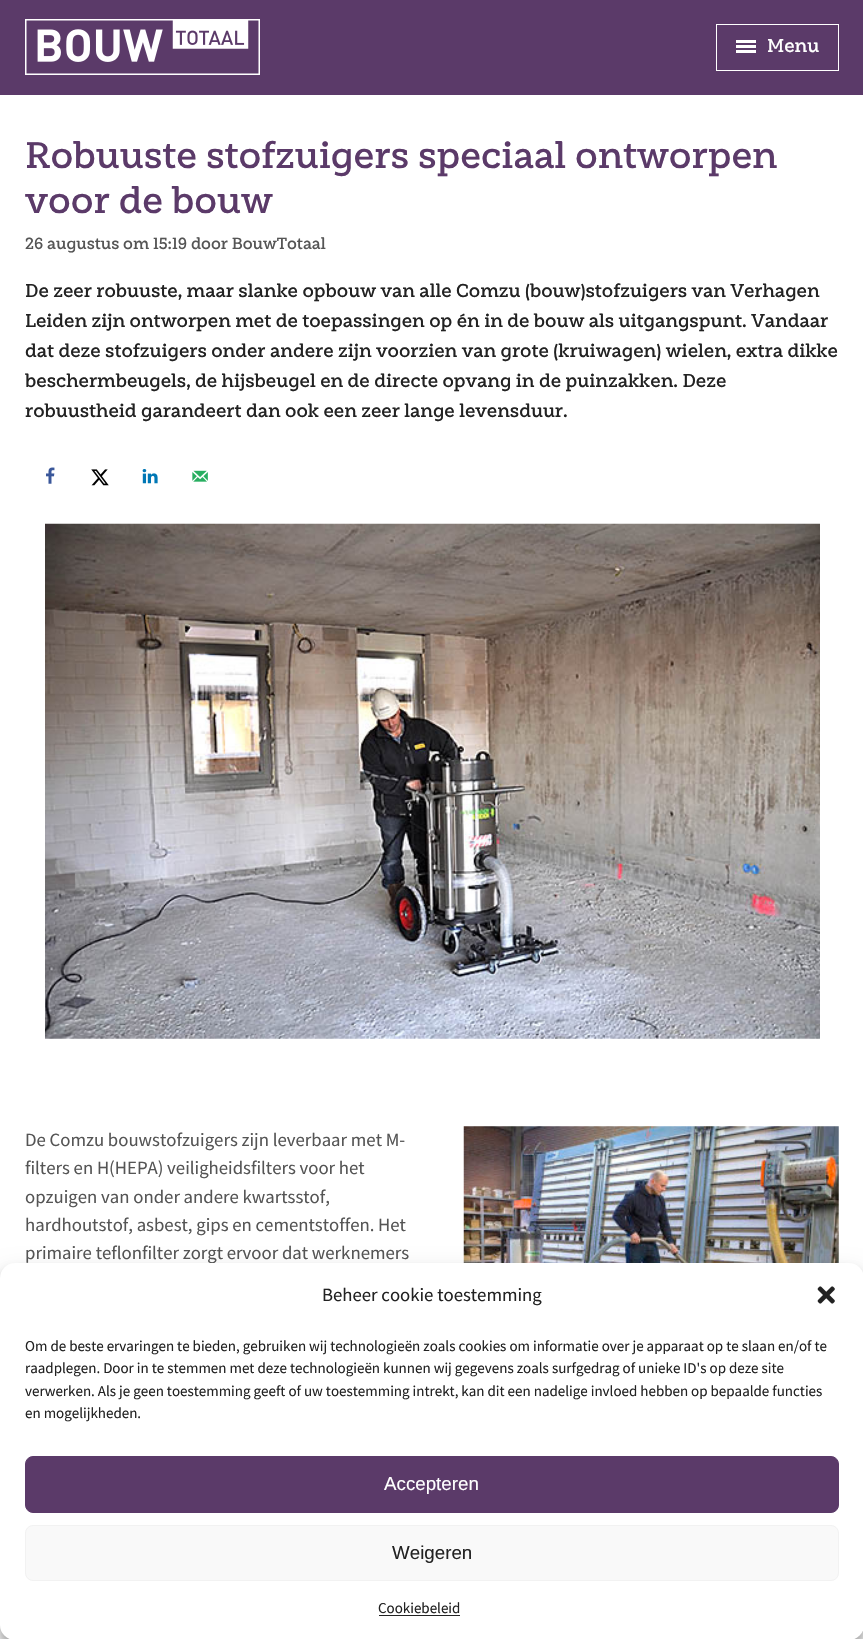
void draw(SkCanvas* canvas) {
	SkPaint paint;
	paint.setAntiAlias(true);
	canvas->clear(0xffffffff);
	paint.setColor(0xff5b3a69);
	canvas->drawRect(SkRect::MakeXYWH(0, 0, 863, 95), paint);
	canvas->drawImageRect(SkImages::DeferredFromEncodedData(SkData::MakeFromFileName("img1.png")), SkRect::MakeXYWH(25, 19, 235, 56), SkSamplingOptions());
	paint.setStroke(true);
	paint.setStrokeWidth(1);
	paint.setColor(0xffffffff);
	canvas->drawRect(SkRect::MakeXYWH(716.5, 24.5, 122, 46), paint);
	paint.setStroke(false);
	canvas->drawRect(SkRect::MakeXYWH(736, 45, 20, 3), paint);
	canvas->drawRect(SkRect::MakeXYWH(736, 40, 20, 3), paint);
	canvas->drawRect(SkRect::MakeXYWH(736, 50, 20, 3), paint);
	SkFont f1(fontMgr->matchFamilyStyle("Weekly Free", SkFontStyle(600, SkFontStyle::kNormal_Width, SkFontStyle::kUpright_Slant)), 18.75);
	f1.setSubpixel(true);
	canvas->drawString("Menu", 767, 52, f1, paint);
	SkFont f2(fontMgr->matchFamilyStyle("Weekly Free", SkFontStyle(600, SkFontStyle::kNormal_Width, SkFontStyle::kUpright_Slant)), 37.5);
	f2.setSubpixel(true);
	paint.setColor(0xff5b3a69);
	canvas->drawString("Robuuste stofzuigers speciaal ontworpen", 25, 168, f2, paint);
	canvas->drawString("voor de bouw", 25, 213, f2, paint);
	SkFont f3(fontMgr->matchFamilyStyle("Weekly Free", SkFontStyle(600, SkFontStyle::kNormal_Width, SkFontStyle::kUpright_Slant)), 16.25);
	f3.setSubpixel(true);
	paint.setColor(0xff555555);
	canvas->drawString("26 augustus om 15:19 door BouwTotaal", 25, 249, f3, paint);
	paint.setColor(0xff222222);
	canvas->drawString("De zeer robuuste, maar slanke opbouw van alle Comzu (bouw)stofzuigers van Verhagen", 25, 297, f1, paint);
	canvas->drawString("Leiden zijn ontworpen met de toepassingen op én in de bouw als uitgangspunt. Vandaar", 25, 327, f1, paint);
	canvas->drawString("dat deze stofzuigers onder andere zijn voorzien van grote (kruiwagen) wielen, extra dikke", 25, 357, f1, paint);
	canvas->drawString("beschermbeugels, de hijsbeugel en de directe opvang in de puinzakken. Deze", 25, 387, f1, paint);
	canvas->drawString("robuustheid garandeert dan ook een zeer lange levensduur.", 25, 417, f1, paint);
	canvas->drawImageRect(SkImages::DeferredFromEncodedData(SkData::MakeFromFileName("img2.png")), SkRect::MakeXYWH(46, 467, 9, 17), SkSamplingOptions());
	canvas->drawImageRect(SkImages::DeferredFromEncodedData(SkData::MakeFromFileName("img3.png")), SkRect::MakeXYWH(91, 469, 18, 17), SkSamplingOptions());
	canvas->drawImageRect(SkImages::DeferredFromEncodedData(SkData::MakeFromFileName("img4.png")), SkRect::MakeXYWH(142, 469, 16, 15), SkSamplingOptions());
	canvas->drawImageRect(SkImages::DeferredFromEncodedData(SkData::MakeFromFileName("img5.png")), SkRect::MakeXYWH(192, 470, 16, 12), SkSamplingOptions());
	canvas->drawImageRect(SkImages::DeferredFromEncodedData(SkData::MakeFromFileName("img6.png")), SkRect::MakeXYWH(45, 523, 775, 516), SkSamplingOptions());
	SkFont f4(fontMgr->matchFamilyStyle("Source Sans Pro", SkFontStyle::Normal()), 18.75);
	f4.setSubpixel(true);
	paint.setColor(0xff555555);
	canvas->drawString("De Comzu bouwstofzuigers zijn leverbaar met M-", 25, 1146, f4, paint);
	canvas->drawString("filters en H(HEPA) veiligheidsfilters voor het", 25, 1174, f4, paint);
	canvas->drawString("opzuigen van onder andere kwartsstof,", 25, 1203, f4, paint);
	canvas->drawString("hardhoutstof, asbest, gips en cementstoffen. Het", 25, 1231, f4, paint);
	canvas->drawString("primaire teflonfilter zorgt ervoor dat werknemers", 25, 1259, f4, paint);
	canvas->drawImageRect(SkImages::DeferredFromEncodedData(SkData::MakeFromFileName("img7.png")), SkRect::MakeXYWH(463, 1126, 376, 137), SkSamplingOptions());
	paint.setColor(0x3b000000);
	paint.setMaskFilter(SkMaskFilter::MakeBlur(kNormal_SkBlurStyle, 4));
	canvas->drawRoundRect(SkRect::MakeXYWH(0, 1270, 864, 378), 15, 15, paint);
	paint.setMaskFilter(nullptr);
	paint.setColor(0x30000000);
	paint.setMaskFilter(SkMaskFilter::MakeBlur(kNormal_SkBlurStyle, 12.5));
	canvas->drawRoundRect(SkRect::MakeXYWH(0, 1275, 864, 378), 15, 15, paint);
	paint.setMaskFilter(nullptr);
	paint.setColor(0xffffffff);
	canvas->drawRoundRect(SkRect::MakeXYWH(0, 1263, 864, 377), 15, 15, paint);
	paint.setColor(0xff222222);
	canvas->drawString("Beheer cookie toestemming", 322, 1301, f4, paint);
	canvas->drawImageRect(SkImages::DeferredFromEncodedData(SkData::MakeFromFileName("img8.png")), SkRect::MakeXYWH(817, 1286, 18, 18), SkSamplingOptions());
	SkFont f5(fontMgr->matchFamilyStyle("Source Sans Pro", SkFontStyle::Normal()), 15);
	f5.setSubpixel(true);
	canvas->drawString("Om de beste ervaringen te bieden, gebruiken wij technologieën zoals cookies om informatie over je apparaat op te slaan en/of te", 25, 1351, f5, paint);
	canvas->drawString("raadplegen. Door in te stemmen met deze technologieën kunnen wij gegevens zoals surfgedrag of unieke ID's op deze site", 25, 1373, f5, paint);
	canvas->drawString("verwerken. Als je geen toestemming geeft of uw toestemming intrekt, kan dit een nadelige invloed hebben op bepaalde functies", 25, 1396, f5, paint);
	canvas->drawString("en mogelijkheden.", 25, 1418, f5, paint);
	paint.setColor(0xff5b3a69);
	canvas->drawRoundRect(SkRect::MakeXYWH(25.5, 1456.5, 813, 56), 7.5, 7.5, paint);
	paint.setStroke(true);
	canvas->drawRoundRect(SkRect::MakeXYWH(25.5, 1456.5, 813, 56), 7.5, 7.5, paint);
	SkFont f6(fontMgr->matchFamilyStyle("Liberation Sans", SkFontStyle::Normal()), 18.75);
	f6.setSubpixel(true);
	paint.setStroke(false);
	paint.setColor(0xffffffff);
	canvas->drawString("Accepteren", 384, 1490, f6, paint);
	paint.setColor(0xfff9f9f9);
	canvas->drawRoundRect(SkRect::MakeXYWH(25.5, 1525.5, 813, 55), 7.5, 7.5, paint);
	paint.setStroke(true);
	paint.setColor(0xfff2f2f2);
	canvas->drawRoundRect(SkRect::MakeXYWH(25.5, 1525.5, 813, 55), 7.5, 7.5, paint);
	paint.setStroke(false);
	paint.setColor(0xff222222);
	canvas->drawString("Weigeren", 392, 1559, f6, paint);
	canvas->drawString("Cookiebeleid", 378, 1613, f5, paint);
	canvas->drawRect(SkRect::MakeXYWH(379, 1615, 81, 1), paint);
}
